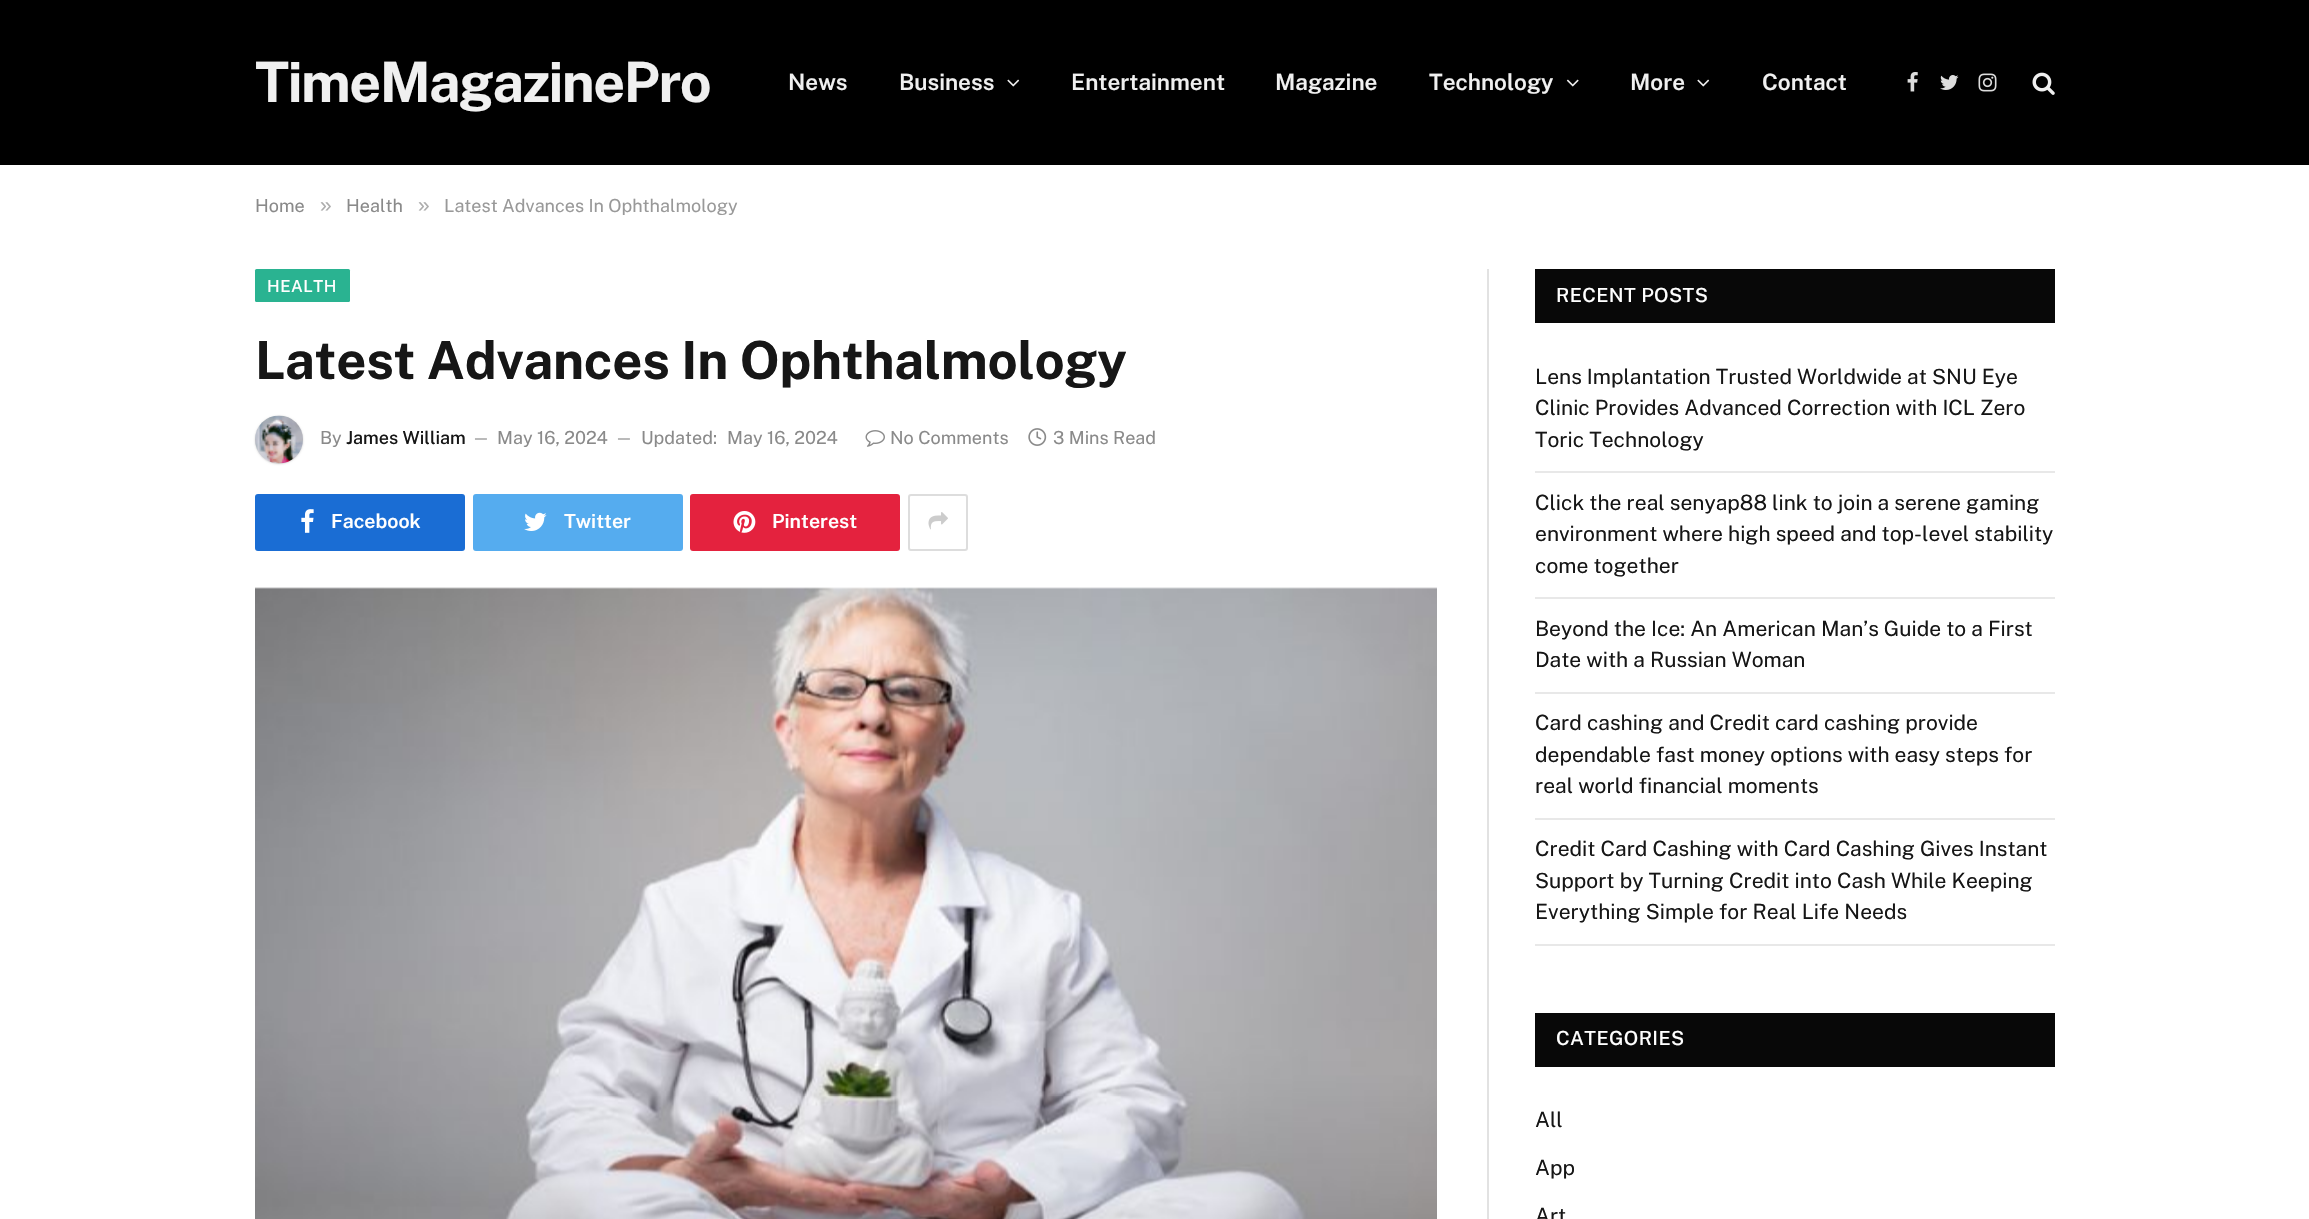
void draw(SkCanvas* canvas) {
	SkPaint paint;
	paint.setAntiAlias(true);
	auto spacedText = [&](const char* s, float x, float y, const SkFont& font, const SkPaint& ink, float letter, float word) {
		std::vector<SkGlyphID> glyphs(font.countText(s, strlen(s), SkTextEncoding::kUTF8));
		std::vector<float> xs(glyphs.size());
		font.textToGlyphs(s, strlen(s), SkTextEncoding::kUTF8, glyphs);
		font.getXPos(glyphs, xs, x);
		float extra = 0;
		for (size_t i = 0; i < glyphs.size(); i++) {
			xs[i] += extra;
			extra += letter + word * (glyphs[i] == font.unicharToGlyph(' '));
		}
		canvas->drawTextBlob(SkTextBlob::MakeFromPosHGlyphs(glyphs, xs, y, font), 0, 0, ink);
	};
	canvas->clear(0xffffffff);
	paint.setColor(0xff000000);
	canvas->drawRect(SkRect::MakeXYWH(0, 0, 2309, 165), paint);
	SkFont f1(fontMgr->matchFamilyStyle("Public Sans", SkFontStyle::Bold()), 55.5);
	f1.setSubpixel(true);
	paint.setColor(0xfff0f0f0);
	spacedText("TimeMagazinePro", 255, 102, f1, paint, -1.5, 0);
	SkFont f2(fontMgr->matchFamilyStyle("Public Sans", SkFontStyle(600, SkFontStyle::kNormal_Width, SkFontStyle::kUpright_Slant)), 22.5);
	f2.setSubpixel(true);
	canvas->drawString("News", 788, 90, f2, paint);
	canvas->drawString("Business", 899, 90, f2, paint);
	canvas->drawImageRect(SkImages::DeferredFromEncodedData(SkData::MakeFromFileName("img1.png")), SkRect::MakeXYWH(1007, 79, 13, 8), SkSamplingOptions());
	canvas->drawString("Entertainment", 1071, 90, f2, paint);
	canvas->drawString("Magazine", 1275, 90, f2, paint);
	canvas->drawString("Technology", 1429, 90, f2, paint);
	canvas->drawImageRect(SkImages::DeferredFromEncodedData(SkData::MakeFromFileName("img2.png")), SkRect::MakeXYWH(1566, 79, 13, 8), SkSamplingOptions());
	canvas->drawString("More", 1630, 90, f2, paint);
	canvas->drawImageRect(SkImages::DeferredFromEncodedData(SkData::MakeFromFileName("img1.png")), SkRect::MakeXYWH(1697, 79, 13, 8), SkSamplingOptions());
	canvas->drawString("Contact", 1762, 90, f2, paint);
	canvas->drawImageRect(SkImages::DeferredFromEncodedData(SkData::MakeFromFileName("img3.png")), SkRect::MakeXYWH(1907, 72, 11, 20), SkSamplingOptions());
	canvas->drawImageRect(SkImages::DeferredFromEncodedData(SkData::MakeFromFileName("img4.png")), SkRect::MakeXYWH(1940, 75, 19, 15), SkSamplingOptions());
	canvas->drawImageRect(SkImages::DeferredFromEncodedData(SkData::MakeFromFileName("img5.png")), SkRect::MakeXYWH(1978, 73, 19, 19), SkSamplingOptions());
	canvas->drawImageRect(SkImages::DeferredFromEncodedData(SkData::MakeFromFileName("img6.png")), SkRect::MakeXYWH(2032, 72, 23, 23), SkSamplingOptions());
	SkFont f3(fontMgr->matchFamilyStyle("Public Sans", SkFontStyle::Normal()), 18);
	f3.setSubpixel(true);
	paint.setColor(0xff8a8a8a);
	canvas->drawString("Home", 255, 212, f3, paint);
	SkFont f4(fontMgr->matchFamilyStyle("Liberation Sans", SkFontStyle::Normal()), 21);
	f4.setSubpixel(true);
	paint.setColor(0xffadadad);
	canvas->drawString("»", 320, 212, f4, paint);
	paint.setColor(0xff8a8a8a);
	canvas->drawString("Health", 346, 212, f3, paint);
	paint.setColor(0xffadadad);
	canvas->drawString("»", 418, 212, f4, paint);
	paint.setColor(0xff999999);
	canvas->drawString("Latest Advances In Ophthalmology", 444, 212, f3, paint);
	paint.setColor(0xff2ab391);
	canvas->drawRoundRect(SkRect::MakeXYWH(255, 269, 95, 33), 1.5, 1.5, paint);
	SkFont f5(fontMgr->matchFamilyStyle("Public Sans", SkFontStyle(500, SkFontStyle::kNormal_Width, SkFontStyle::kUpright_Slant)), 16.5);
	f5.setSubpixel(true);
	paint.setColor(0xffffffff);
	spacedText("HEALTH", 267, 292, f5, paint, 0.5, 0);
	SkFont f6(fontMgr->matchFamilyStyle("Public Sans", SkFontStyle::Bold()), 52.5);
	f6.setSubpixel(true);
	paint.setColor(0xff161616);
	spacedText("Latest Advances In Ophthalmology", 255, 379, f6, paint, -0.25, 0);
	paint.setColor(0x33000000);
	paint.setMaskFilter(SkMaskFilter::MakeBlur(kNormal_SkBlurStyle, 1));
	canvas->drawRoundRect(SkRect::MakeXYWH(255, 416, 48, 48), 24, 24, paint);
	paint.setMaskFilter(nullptr);
	canvas->drawImageRect(SkImages::DeferredFromEncodedData(SkData::MakeFromFileName("img7.png")), SkRect::MakeXYWH(255, 415, 48, 49), SkSamplingOptions());
	paint.setColor(0xff8a8a8a);
	canvas->drawString("By", 320, 444, f3, paint);
	SkFont f7(fontMgr->matchFamilyStyle("Public Sans", SkFontStyle(500, SkFontStyle::kNormal_Width, SkFontStyle::kUpright_Slant)), 18);
	f7.setSubpixel(true);
	paint.setColor(0xff161616);
	canvas->drawString("James William", 346, 444, f7, paint);
	SkFont f8(fontMgr->matchFamilyStyle("Public Sans", SkFontStyle::Normal()), 16);
	f8.setSubpixel(true);
	paint.setColor(0xff8a8a8a);
	canvas->drawString("—", 472, 443, f8, paint);
	canvas->drawString("May 16, 2024", 497, 444, f3, paint);
	canvas->drawString("—", 615, 443, f8, paint);
	canvas->drawString("Updated:", 641, 444, f3, paint);
	canvas->drawString("May 16, 2024", 727, 444, f3, paint);
	canvas->drawImageRect(SkImages::DeferredFromEncodedData(SkData::MakeFromFileName("img8.png")), SkRect::MakeXYWH(865, 430, 20, 17), SkSamplingOptions());
	canvas->drawString("No Comments", 890, 444, f3, paint);
	canvas->drawImageRect(SkImages::DeferredFromEncodedData(SkData::MakeFromFileName("img9.png")), SkRect::MakeXYWH(1028, 428, 19, 18), SkSamplingOptions());
	canvas->drawString("3 Mins Read", 1053, 444, f3, paint);
	paint.setColor(0xff1a6dd4);
	canvas->drawRoundRect(SkRect::MakeXYWH(255, 494, 210, 57), 3, 3, paint);
	canvas->drawImageRect(SkImages::DeferredFromEncodedData(SkData::MakeFromFileName("img10.png")), SkRect::MakeXYWH(301, 509, 13, 24), SkSamplingOptions());
	SkFont f9(fontMgr->matchFamilyStyle("Public Sans", SkFontStyle(600, SkFontStyle::kNormal_Width, SkFontStyle::kUpright_Slant)), 19.5);
	f9.setSubpixel(true);
	paint.setColor(0xffffffff);
	canvas->drawString("Facebook", 331, 528, f9, paint);
	paint.setColor(0xff55acef);
	canvas->drawRoundRect(SkRect::MakeXYWH(473, 494, 210, 57), 3, 3, paint);
	canvas->drawImageRect(SkImages::DeferredFromEncodedData(SkData::MakeFromFileName("img11.png")), SkRect::MakeXYWH(524, 512, 23, 19), SkSamplingOptions());
	paint.setColor(0xffffffff);
	canvas->drawString("Twitter", 564, 528, f9, paint);
	paint.setColor(0xffe4223e);
	canvas->drawRoundRect(SkRect::MakeXYWH(690, 494, 210, 57), 3, 3, paint);
	canvas->drawImageRect(SkImages::DeferredFromEncodedData(SkData::MakeFromFileName("img12.png")), SkRect::MakeXYWH(733, 511, 23, 22), SkSamplingOptions());
	paint.setColor(0xffffffff);
	canvas->drawString("Pinterest", 772, 528, f9, paint);
	paint.setStroke(true);
	paint.setStrokeWidth(2);
	paint.setColor(0xffdddddd);
	canvas->drawRoundRect(SkRect::MakeXYWH(909, 495, 58, 55), 2, 2, paint);
	canvas->drawImageRect(SkImages::DeferredFromEncodedData(SkData::MakeFromFileName("img13.png")), SkRect::MakeXYWH(928, 512, 20, 18), SkSamplingOptions());
	canvas->drawImageRect(SkImages::DeferredFromEncodedData(SkData::MakeFromFileName("img14.png")), SkRect::MakeXYWH(255, 587, 1182, 632), SkSamplingOptions());
	paint.setStroke(false);
	paint.setColor(0xffe2e2e2);
	canvas->drawRect(SkRect::MakeXYWH(1487, 269, 2, 950), paint);
	paint.setColor(0xff080808);
	canvas->drawRect(SkRect::MakeXYWH(1535, 269, 520, 54), paint);
	SkFont f10(fontMgr->matchFamilyStyle("Public Sans", SkFontStyle(500, SkFontStyle::kNormal_Width, SkFontStyle::kUpright_Slant)), 19.5);
	f10.setSubpixel(true);
	paint.setColor(0xffffffff);
	spacedText("RECENT POSTS", 1556, 302, f10, paint, 0.4, 0);
	paint.setColor(0xffe8e8e8);
	canvas->drawRect(SkRect::MakeXYWH(1535, 471, 520, 2), paint);
	SkFont f11(fontMgr->matchFamilyStyle("Public Sans", SkFontStyle::Normal()), 21);
	f11.setSubpixel(true);
	paint.setColor(0xff161616);
	canvas->drawString("Lens Implantation Trusted Worldwide at SNU Eye", 1535, 384, f11, paint);
	canvas->drawString("Clinic Provides Advanced Correction with ICL Zero", 1535, 415, f11, paint);
	canvas->drawString("Toric Technology", 1535, 447, f11, paint);
	paint.setColor(0xffe8e8e8);
	canvas->drawRect(SkRect::MakeXYWH(1535, 597, 520, 2), paint);
	paint.setColor(0xff161616);
	canvas->drawString("Click the real senyap88 link to join a serene gaming", 1535, 510, f11, paint);
	canvas->drawString("environment where high speed and top-level stability", 1535, 541, f11, paint);
	canvas->drawString("come together", 1535, 573, f11, paint);
	paint.setColor(0xffe8e8e8);
	canvas->drawRect(SkRect::MakeXYWH(1535, 692, 520, 2), paint);
	paint.setColor(0xff161616);
	canvas->drawString("Beyond the Ice: An American Man’s Guide to a First", 1535, 636, f11, paint);
	canvas->drawString("Date with a Russian Woman", 1535, 667, f11, paint);
	paint.setColor(0xffe8e8e8);
	canvas->drawRect(SkRect::MakeXYWH(1535, 818, 520, 2), paint);
	paint.setColor(0xff161616);
	canvas->drawString("Card cashing and Credit card cashing provide", 1535, 730, f11, paint);
	canvas->drawString("dependable fast money options with easy steps for", 1535, 762, f11, paint);
	canvas->drawString("real world financial moments", 1535, 793, f11, paint);
	paint.setColor(0xffe8e8e8);
	canvas->drawRect(SkRect::MakeXYWH(1535, 944, 520, 2), paint);
	paint.setColor(0xff161616);
	canvas->drawString("Credit Card Cashing with Card Cashing Gives Instant", 1535, 856, f11, paint);
	canvas->drawString("Support by Turning Credit into Cash While Keeping", 1535, 888, f11, paint);
	canvas->drawString("Everything Simple for Real Life Needs", 1535, 919, f11, paint);
	paint.setColor(0xff080808);
	canvas->drawRect(SkRect::MakeXYWH(1535, 1013, 520, 54), paint);
	paint.setColor(0xffffffff);
	spacedText("CATEGORIES", 1556, 1045, f10, paint, 0.4, 0);
	paint.setColor(0xff161616);
	canvas->drawString("All", 1535, 1127, f11, paint);
	canvas->drawString("App", 1535, 1175, f11, paint);
	canvas->drawString("Art", 1535, 1223, f11, paint);
}
